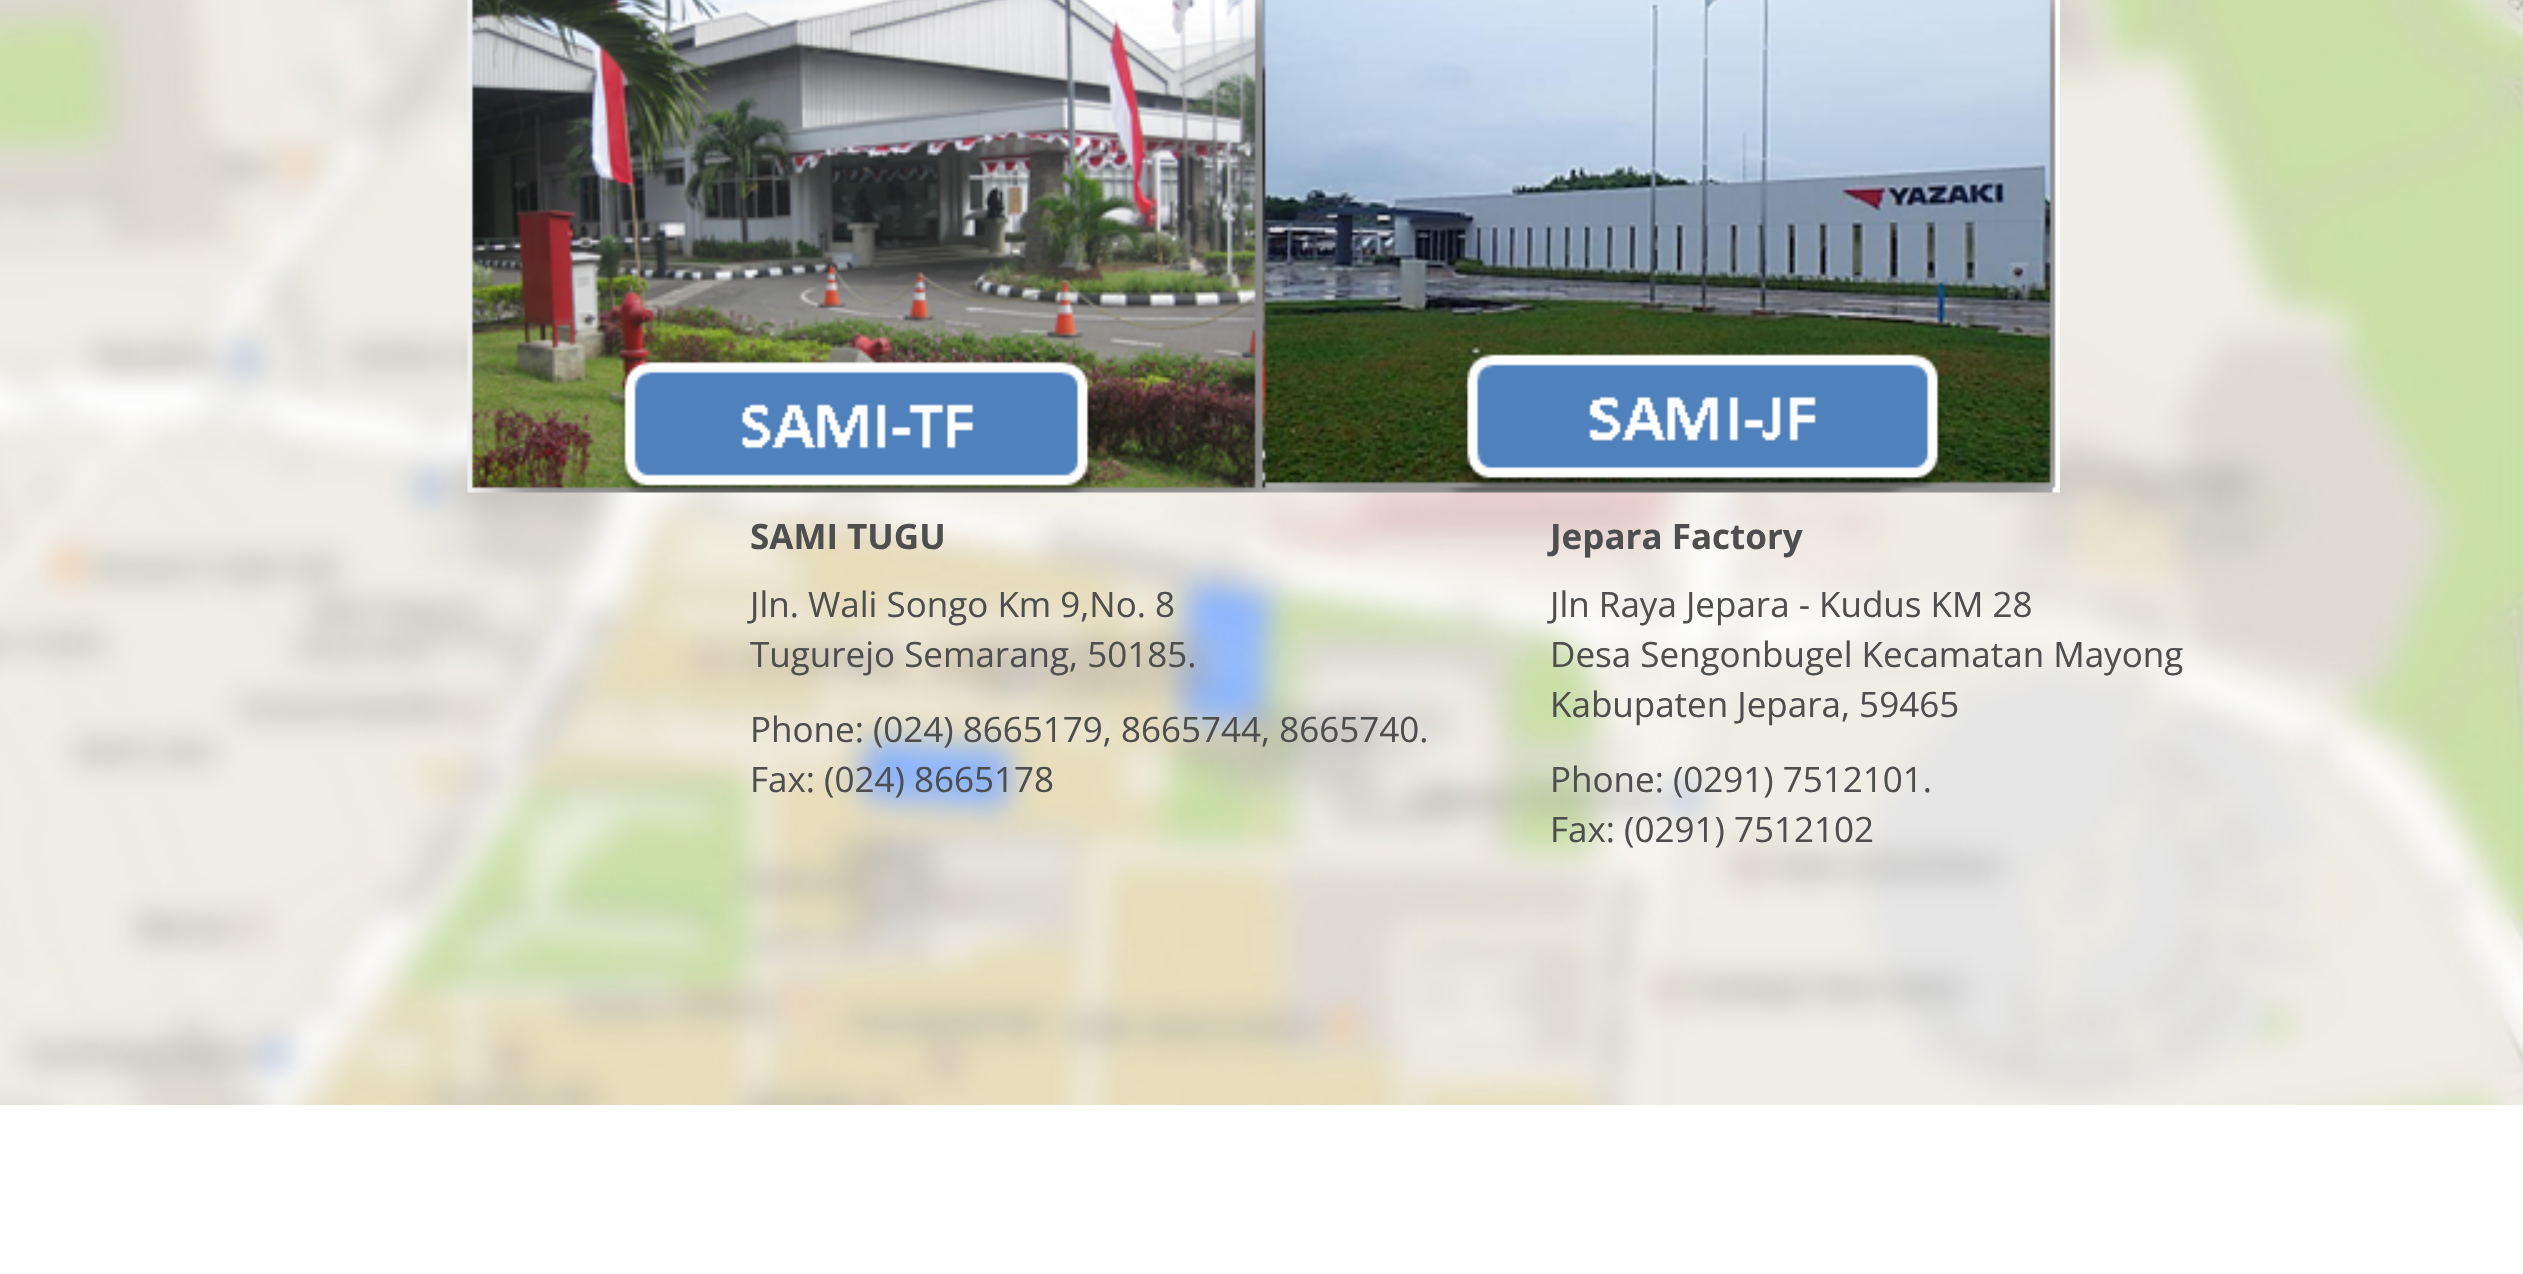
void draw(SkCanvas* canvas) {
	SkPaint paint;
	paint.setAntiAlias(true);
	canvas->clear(0xffffffff);
	canvas->drawImageRect(SkImages::DeferredFromEncodedData(SkData::MakeFromFileName("img1.png")), SkRect::MakeXYWH(0, 0, 2523, 1105), SkSamplingOptions());
	canvas->drawImageRect(SkImages::DeferredFromEncodedData(SkData::MakeFromFileName("img2.png")), SkRect::MakeXYWH(467, 0, 1593, 493), SkSamplingOptions());
	SkFont f1(fontMgr->matchFamilyStyle("Open Sans", SkFontStyle::Bold()), 35);
	f1.setSubpixel(true);
	paint.setColor(0xff4e4e4e);
	canvas->drawString("SAMI TUGU", 750, 549, f1, paint);
	SkFont f2(fontMgr->matchFamilyStyle("Open Sans", SkFontStyle::Normal()), 35);
	f2.setSubpixel(true);
	canvas->drawString("Jln. Wali Songo Km 9,No. 8", 750, 617, f2, paint);
	canvas->drawString("Tugurejo Semarang, 50185.", 750, 667, f2, paint);
	canvas->drawString("Phone: (024) 8665179, 8665744, 8665740.", 750, 742, f2, paint);
	canvas->drawString("Fax: (024) 8665178", 750, 792, f2, paint);
	canvas->drawString("Jepara Factory", 1550, 549, f1, paint);
	canvas->drawString("Jln Raya Jepara - Kudus KM 28", 1550, 617, f2, paint);
	canvas->drawString("Desa Sengonbugel Kecamatan Mayong", 1550, 667, f2, paint);
	canvas->drawString("Kabupaten Jepara, 59465", 1550, 717, f2, paint);
	canvas->drawString("Phone: (0291) 7512101.", 1550, 792, f2, paint);
	canvas->drawString("Fax: (0291) 7512102", 1550, 842, f2, paint);
}
